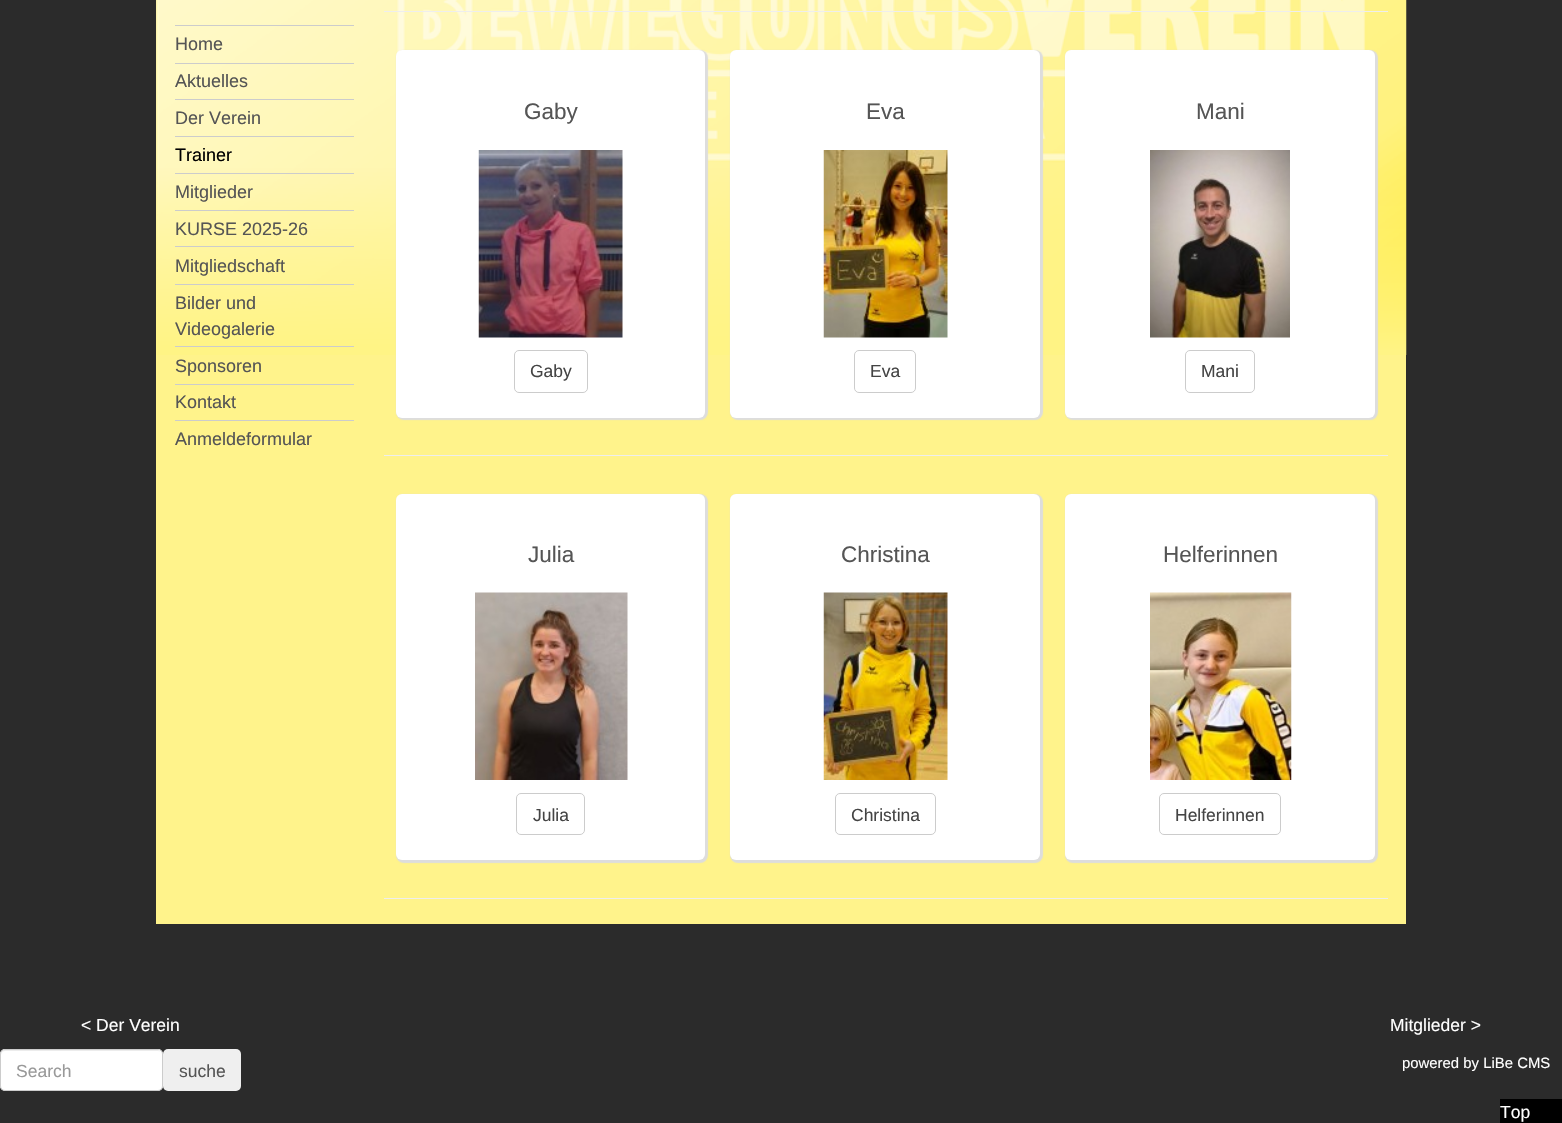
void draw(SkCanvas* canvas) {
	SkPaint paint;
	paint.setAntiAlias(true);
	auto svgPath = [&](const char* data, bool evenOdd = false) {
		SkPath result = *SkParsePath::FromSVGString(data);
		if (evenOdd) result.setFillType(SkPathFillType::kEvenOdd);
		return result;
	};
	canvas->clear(0xff2b2b2b);
	paint.setColor(0xfffff38b);
	canvas->drawRect(SkRect::MakeXYWH(156, 0, 1250, 924), paint);
	canvas->drawImageRect(SkImages::DeferredFromEncodedData(SkData::MakeFromFileName("img1.png")), SkRect::MakeXYWH(156, 0, 1251, 355), SkSamplingOptions());
	paint.setColor(0xffcccccc);
	canvas->drawRect(SkRect::MakeXYWH(175, 25, 179, 1), paint);
	SkFont f1(fontMgr->matchFamilyStyle("Liberation Sans", SkFontStyle::Normal()), 18);
	f1.setSubpixel(true);
	paint.setColor(0xff555555);
	canvas->drawString("Home", 175, 50, f1, paint);
	paint.setColor(0xffcccccc);
	canvas->drawRect(SkRect::MakeXYWH(175, 63, 179, 1), paint);
	paint.setColor(0xff555555);
	canvas->drawString("Aktuelles", 175, 87, f1, paint);
	paint.setColor(0xffcccccc);
	canvas->drawRect(SkRect::MakeXYWH(175, 99, 179, 1), paint);
	paint.setColor(0xff555555);
	canvas->drawString("Der Verein", 175, 124, f1, paint);
	paint.setColor(0xffcccccc);
	canvas->drawRect(SkRect::MakeXYWH(175, 136, 179, 1), paint);
	paint.setColor(0xff000000);
	canvas->drawString("Trainer", 175, 161, f1, paint);
	paint.setColor(0xffcccccc);
	canvas->drawRect(SkRect::MakeXYWH(175, 173, 179, 1), paint);
	paint.setColor(0xff555555);
	canvas->drawString("Mitglieder", 175, 198, f1, paint);
	paint.setColor(0xffcccccc);
	canvas->drawRect(SkRect::MakeXYWH(175, 210, 179, 1), paint);
	paint.setColor(0xff555555);
	canvas->drawString("KURSE 2025-26", 175, 235, f1, paint);
	paint.setColor(0xffcccccc);
	canvas->drawRect(SkRect::MakeXYWH(175, 246, 179, 1), paint);
	paint.setColor(0xff555555);
	canvas->drawString("Mitgliedschaft", 175, 272, f1, paint);
	paint.setColor(0xffcccccc);
	canvas->drawRect(SkRect::MakeXYWH(175, 284, 179, 1), paint);
	paint.setColor(0xff555555);
	canvas->drawString("Bilder und", 175, 309, f1, paint);
	canvas->drawString("Videogalerie", 175, 335, f1, paint);
	paint.setColor(0xffcccccc);
	canvas->drawRect(SkRect::MakeXYWH(175, 346, 179, 1), paint);
	paint.setColor(0xff555555);
	canvas->drawString("Sponsoren", 175, 372, f1, paint);
	paint.setColor(0xffcccccc);
	canvas->drawRect(SkRect::MakeXYWH(175, 384, 179, 1), paint);
	paint.setColor(0xff555555);
	canvas->drawString("Kontakt", 175, 408, f1, paint);
	paint.setColor(0xffcccccc);
	canvas->drawRect(SkRect::MakeXYWH(175, 420, 179, 1), paint);
	paint.setColor(0xff555555);
	canvas->drawString("Anmeldeformular", 175, 445, f1, paint);
	paint.setColor(0xffeeeeee);
	canvas->drawRect(SkRect::MakeXYWH(384, 11, 1004, 1), paint);
	paint.setColor(0xffdddddd);
	paint.setMaskFilter(SkMaskFilter::MakeBlur(kNormal_SkBlurStyle, 0.5));
	canvas->drawRoundRect(SkRect::MakeXYWH(396, 50, 312, 370), 8, 8, paint);
	paint.setMaskFilter(nullptr);
	paint.setColor(0xffffffff);
	canvas->drawRoundRect(SkRect::MakeXYWH(396, 50, 309, 368), 6, 6, paint);
	SkFont f2(fontMgr->matchFamilyStyle("Liberation Sans", SkFontStyle::Normal()), 22.5);
	f2.setSubpixel(true);
	paint.setColor(0xff555555);
	canvas->drawString("Gaby", 524, 119, f2, paint);
	canvas->drawImageRect(SkImages::DeferredFromEncodedData(SkData::MakeFromFileName("img2.png")), SkRect::MakeXYWH(478, 150, 145, 188), SkSamplingOptions());
	paint.setStroke(true);
	paint.setStrokeWidth(1);
	paint.setColor(0xffcccccc);
	canvas->drawRoundRect(SkRect::MakeXYWH(514.5, 350.5, 73, 42), 4.5, 4.5, paint);
	SkFont f3(fontMgr->matchFamilyStyle("Liberation Sans", SkFontStyle::Normal()), 17.5);
	f3.setSubpixel(true);
	paint.setStroke(false);
	paint.setColor(0xff444444);
	canvas->drawString("Gaby", 530, 377, f3, paint);
	paint.setColor(0xffdddddd);
	paint.setMaskFilter(SkMaskFilter::MakeBlur(kNormal_SkBlurStyle, 0.5));
	canvas->drawRoundRect(SkRect::MakeXYWH(730, 50, 313, 370), 8, 8, paint);
	paint.setMaskFilter(nullptr);
	paint.setColor(0xffffffff);
	canvas->drawRoundRect(SkRect::MakeXYWH(730, 50, 310, 368), 6, 6, paint);
	paint.setColor(0xff555555);
	canvas->drawString("Eva", 866, 119, f2, paint);
	canvas->drawImageRect(SkImages::DeferredFromEncodedData(SkData::MakeFromFileName("img3.png")), SkRect::MakeXYWH(823, 150, 125, 188), SkSamplingOptions());
	paint.setStroke(true);
	paint.setColor(0xffcccccc);
	canvas->drawRoundRect(SkRect::MakeXYWH(854.5, 350.5, 61, 42), 4.5, 4.5, paint);
	paint.setStroke(false);
	paint.setColor(0xff444444);
	canvas->drawString("Eva", 870, 377, f3, paint);
	paint.setColor(0xffdddddd);
	paint.setMaskFilter(SkMaskFilter::MakeBlur(kNormal_SkBlurStyle, 0.5));
	canvas->drawRoundRect(SkRect::MakeXYWH(1065, 50, 313, 370), 8, 8, paint);
	paint.setMaskFilter(nullptr);
	paint.setColor(0xffffffff);
	canvas->drawRoundRect(SkRect::MakeXYWH(1065, 50, 310, 368), 6, 6, paint);
	paint.setColor(0xff555555);
	canvas->drawString("Mani", 1196, 119, f2, paint);
	canvas->drawImageRect(SkImages::DeferredFromEncodedData(SkData::MakeFromFileName("img4.png")), SkRect::MakeXYWH(1150, 150, 140, 188), SkSamplingOptions());
	paint.setStroke(true);
	paint.setColor(0xffcccccc);
	canvas->drawRoundRect(SkRect::MakeXYWH(1185.5, 350.5, 69, 42), 4.5, 4.5, paint);
	paint.setStroke(false);
	paint.setColor(0xff444444);
	canvas->drawString("Mani", 1201, 377, f3, paint);
	paint.setColor(0xffeeeeee);
	canvas->drawRect(SkRect::MakeXYWH(384, 455, 1004, 1), paint);
	paint.setColor(0xffdddddd);
	paint.setMaskFilter(SkMaskFilter::MakeBlur(kNormal_SkBlurStyle, 0.5));
	canvas->drawRoundRect(SkRect::MakeXYWH(396, 494, 312, 369), 8, 8, paint);
	paint.setMaskFilter(nullptr);
	paint.setColor(0xffffffff);
	canvas->drawRoundRect(SkRect::MakeXYWH(396, 494, 309, 366), 6, 6, paint);
	paint.setColor(0xff555555);
	canvas->drawString("Julia", 528, 562, f2, paint);
	canvas->drawImageRect(SkImages::DeferredFromEncodedData(SkData::MakeFromFileName("img5.png")), SkRect::MakeXYWH(475, 592, 153, 188), SkSamplingOptions());
	paint.setStroke(true);
	paint.setColor(0xffcccccc);
	canvas->drawRoundRect(SkRect::MakeXYWH(516.5, 793.5, 68, 41), 4.5, 4.5, paint);
	paint.setStroke(false);
	paint.setColor(0xff444444);
	canvas->drawString("Julia", 533, 821, f3, paint);
	paint.setColor(0xffdddddd);
	paint.setMaskFilter(SkMaskFilter::MakeBlur(kNormal_SkBlurStyle, 0.5));
	canvas->drawRoundRect(SkRect::MakeXYWH(730, 494, 313, 369), 8, 8, paint);
	paint.setMaskFilter(nullptr);
	paint.setColor(0xffffffff);
	canvas->drawRoundRect(SkRect::MakeXYWH(730, 494, 310, 366), 6, 6, paint);
	paint.setColor(0xff555555);
	canvas->drawString("Christina", 841, 562, f2, paint);
	canvas->drawImageRect(SkImages::DeferredFromEncodedData(SkData::MakeFromFileName("img6.png")), SkRect::MakeXYWH(823, 592, 125, 188), SkSamplingOptions());
	paint.setStroke(true);
	paint.setColor(0xffcccccc);
	canvas->drawRoundRect(SkRect::MakeXYWH(835.5, 793.5, 100, 41), 4.5, 4.5, paint);
	paint.setStroke(false);
	paint.setColor(0xff444444);
	canvas->drawString("Christina", 851, 821, f3, paint);
	paint.setColor(0xffdddddd);
	paint.setMaskFilter(SkMaskFilter::MakeBlur(kNormal_SkBlurStyle, 0.5));
	canvas->drawRoundRect(SkRect::MakeXYWH(1065, 494, 313, 369), 8, 8, paint);
	paint.setMaskFilter(nullptr);
	paint.setColor(0xffffffff);
	canvas->drawRoundRect(SkRect::MakeXYWH(1065, 494, 310, 366), 6, 6, paint);
	paint.setColor(0xff555555);
	canvas->drawString("Helferinnen", 1163, 562, f2, paint);
	canvas->drawImageRect(SkImages::DeferredFromEncodedData(SkData::MakeFromFileName("img7.png")), SkRect::MakeXYWH(1150, 592, 142, 188), SkSamplingOptions());
	paint.setStroke(true);
	paint.setColor(0xffcccccc);
	canvas->drawRoundRect(SkRect::MakeXYWH(1159.5, 793.5, 121, 41), 4.5, 4.5, paint);
	paint.setStroke(false);
	paint.setColor(0xff444444);
	canvas->drawString("Helferinnen", 1175, 821, f3, paint);
	paint.setColor(0xffeeeeee);
	canvas->drawRect(SkRect::MakeXYWH(384, 898, 1004, 1), paint);
	paint.setColor(0xffffffff);
	canvas->drawString("< Der Verein", 81, 1031, f3, paint);
	canvas->drawString("Mitglieder >", 1390, 1031, f3, paint);
	canvas->drawRoundRect(SkRect::MakeXYWH(0, 1049, 163, 42), 5, 5, paint);
	paint.setColor(0xffececec);
	canvas->drawPath(svgPath("M5 1051H158C160 1051 161 1053 161 1055C161 1053 160 1051 158 1050H4C2 1051 1 1053 1 1055C1 1053 3 1051 5 1051Z"), paint);
	paint.setStroke(true);
	paint.setColor(0xffcccccc);
	canvas->drawRoundRect(SkRect::MakeXYWH(0.5, 1049.5, 162, 41), 4.5, 4.5, paint);
	paint.setStroke(false);
	paint.setColor(0xff999999);
	canvas->drawString("Search", 16, 1077, f3, paint);
	paint.setColor(0xffefefef);
	canvas->drawRoundRect(SkRect::MakeXYWH(163, 1049, 78, 42), 5, 5, paint);
	paint.setColor(0xff555555);
	canvas->drawString("suche", 179, 1077, f3, paint);
	SkFont f4(fontMgr->matchFamilyStyle("Liberation Sans", SkFontStyle::Normal()), 14.9);
	f4.setSubpixel(true);
	paint.setColor(0xffffffff);
	canvas->drawString("powered by LiBe CMS", 1402, 1068, f4, paint);
	paint.setColor(0xff000000);
	canvas->drawRect(SkRect::MakeXYWH(1500, 1099, 62, 24), paint);
	paint.setColor(0xffffffff);
	canvas->drawString("Top", 1500, 1118, f3, paint);
}
